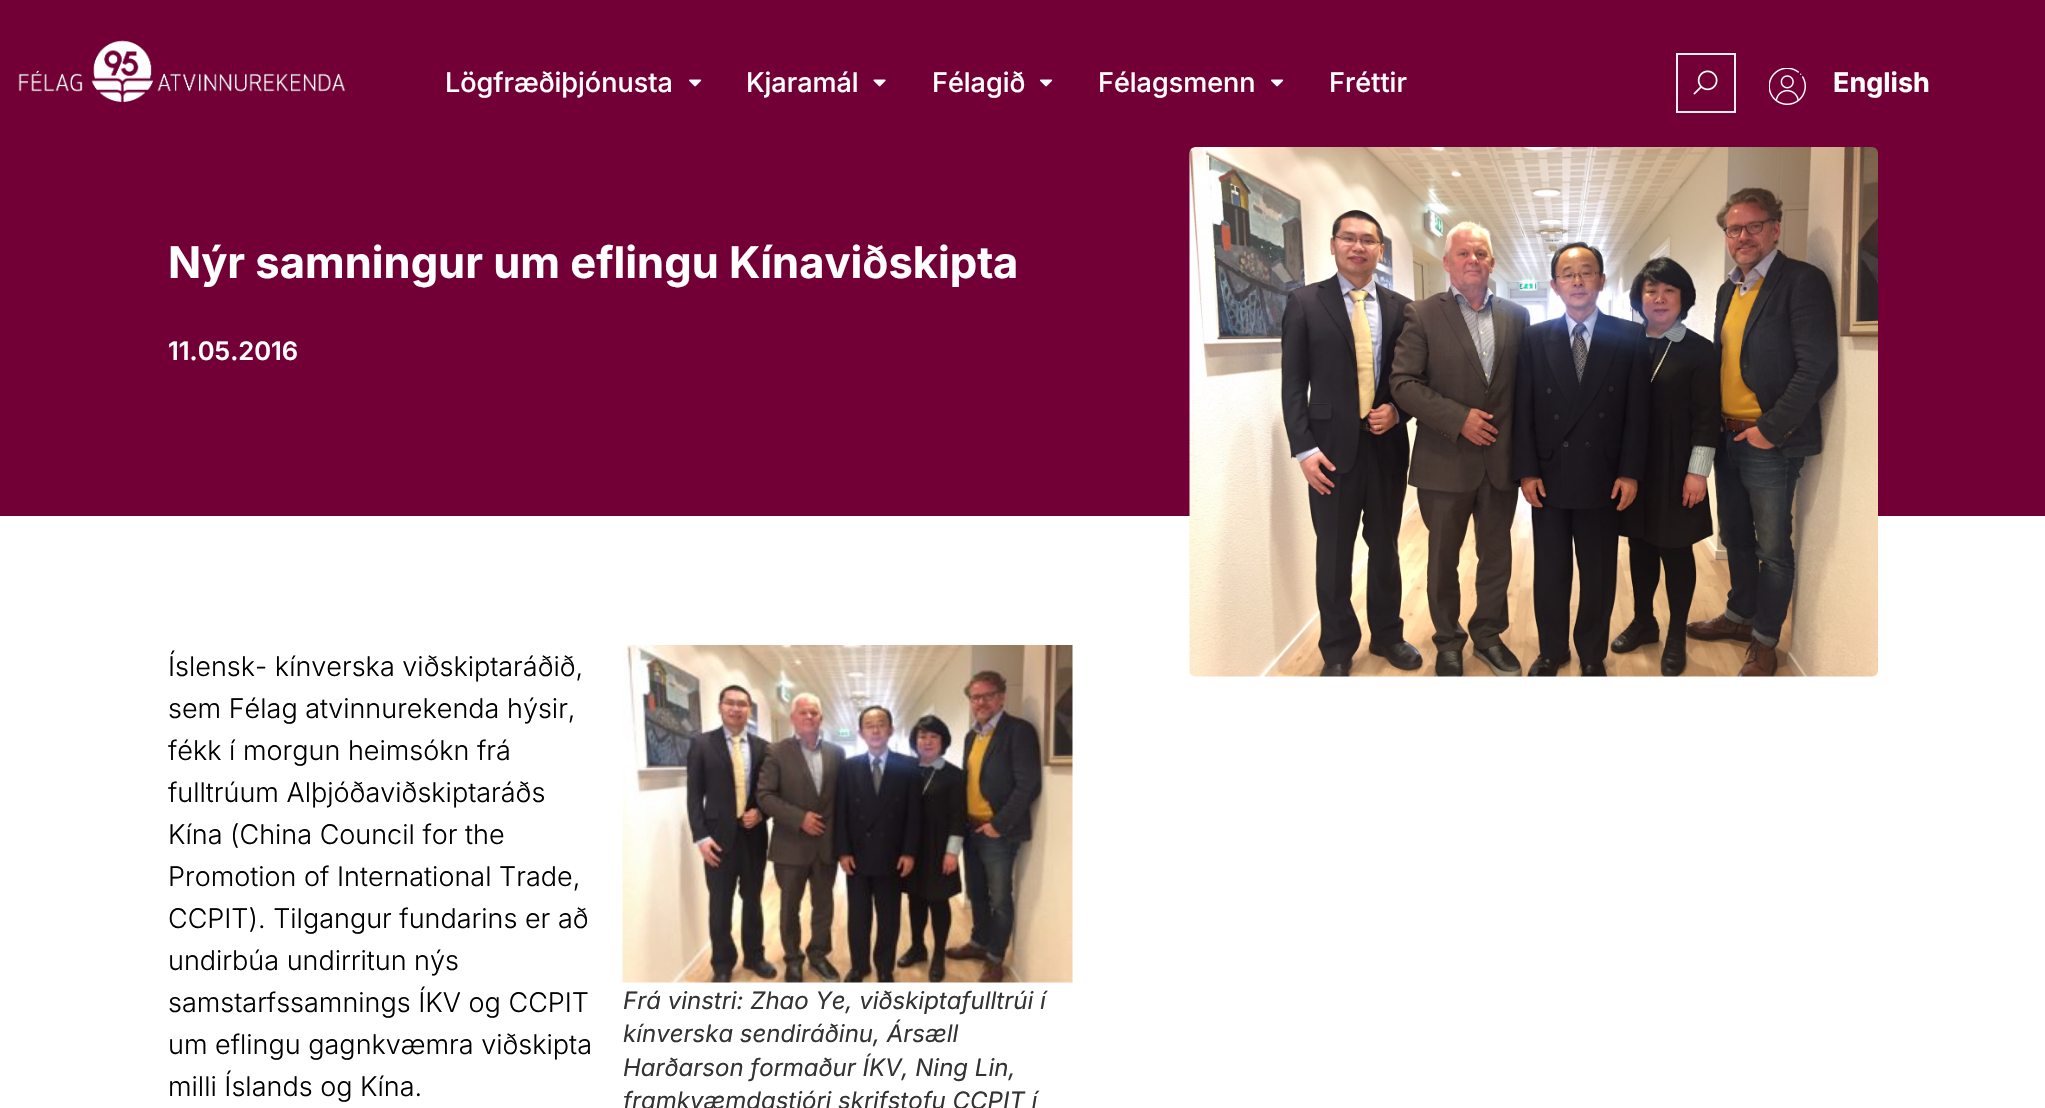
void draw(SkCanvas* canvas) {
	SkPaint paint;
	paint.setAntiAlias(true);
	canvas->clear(0xffffffff);
	paint.setColor(0xff720036);
	canvas->drawRect(SkRect::MakeXYWH(0, 0, 2045, 516), paint);
	canvas->drawImageRect(SkImages::DeferredFromEncodedData(SkData::MakeFromFileName("img1.png")), SkRect::MakeXYWH(18, 40, 328, 62), SkSamplingOptions());
	SkFont f1(fontMgr->matchFamilyStyle("Inter", SkFontStyle(500, SkFontStyle::kNormal_Width, SkFontStyle::kUpright_Slant)), 27);
	f1.setSubpixel(true);
	paint.setColor(0xffffffff);
	canvas->drawString("Lögfræðiþjónusta", 445, 92, f1, paint);
	canvas->drawImageRect(SkImages::DeferredFromEncodedData(SkData::MakeFromFileName("img2.png")), SkRect::MakeXYWH(689, 79, 13, 8), SkSamplingOptions());
	canvas->drawString("Kjaramál", 746, 92, f1, paint);
	canvas->drawImageRect(SkImages::DeferredFromEncodedData(SkData::MakeFromFileName("img3.png")), SkRect::MakeXYWH(873, 79, 13, 8), SkSamplingOptions());
	canvas->drawString("Félagið", 932, 92, f1, paint);
	canvas->drawImageRect(SkImages::DeferredFromEncodedData(SkData::MakeFromFileName("img2.png")), SkRect::MakeXYWH(1040, 79, 13, 8), SkSamplingOptions());
	canvas->drawString("Félagsmenn", 1098, 92, f1, paint);
	canvas->drawImageRect(SkImages::DeferredFromEncodedData(SkData::MakeFromFileName("img2.png")), SkRect::MakeXYWH(1271, 79, 13, 8), SkSamplingOptions());
	canvas->drawString("Fréttir", 1329, 92, f1, paint);
	paint.setStroke(true);
	paint.setStrokeWidth(2);
	paint.setColor(0xffeceeef);
	canvas->drawRect(SkRect::MakeXYWH(1677, 54, 58, 58), paint);
	canvas->drawImageRect(SkImages::DeferredFromEncodedData(SkData::MakeFromFileName("img4.png")), SkRect::MakeXYWH(1693, 70, 25, 25), SkSamplingOptions());
	canvas->drawImageRect(SkImages::DeferredFromEncodedData(SkData::MakeFromFileName("img5.png")), SkRect::MakeXYWH(1769, 68, 37, 37), SkSamplingOptions());
	SkFont f2(fontMgr->matchFamilyStyle("Inter", SkFontStyle::Bold()), 27);
	f2.setSubpixel(true);
	paint.setStroke(false);
	paint.setColor(0xffffffff);
	canvas->drawString("English", 1833, 92, f2, paint);
	SkFont f3(fontMgr->matchFamilyStyle("Inter", SkFontStyle::Bold()), 43.5);
	f3.setSubpixel(true);
	canvas->drawString("Nýr samningur um eflingu Kínaviðskipta", 168, 278, f3, paint);
	SkFont f4(fontMgr->matchFamilyStyle("Inter", SkFontStyle(600, SkFontStyle::kNormal_Width, SkFontStyle::kUpright_Slant)), 25.5);
	f4.setSubpixel(true);
	canvas->drawString("11.05.2016", 168, 360, f4, paint);
	canvas->drawImageRect(SkImages::DeferredFromEncodedData(SkData::MakeFromFileName("img6.png")), SkRect::MakeXYWH(1189, 147, 689, 530), SkSamplingOptions());
	SkFont f5(fontMgr->matchFamilyStyle("Inter", SkFontStyle(300, SkFontStyle::kNormal_Width, SkFontStyle::kUpright_Slant)), 27);
	f5.setSubpixel(true);
	paint.setColor(0xff000000);
	canvas->drawString("Íslensk- kínverska viðskiptaráðið,", 168, 676, f5, paint);
	canvas->drawString("sem Félag atvinnurekenda hýsir,", 168, 718, f5, paint);
	canvas->drawString("fékk í morgun heimsókn frá", 168, 760, f5, paint);
	canvas->drawString("fulltrúum Alþjóðaviðskiptaráðs", 168, 802, f5, paint);
	canvas->drawString("Kína (China Council for the", 168, 844, f5, paint);
	canvas->drawString("Promotion of International Trade,", 168, 886, f5, paint);
	canvas->drawString("CCPIT). Tilgangur fundarins er að", 168, 928, f5, paint);
	canvas->drawString("undirbúa undirritun nýs", 168, 970, f5, paint);
	canvas->drawString("samstarfssamnings ÍKV og CCPIT", 168, 1012, f5, paint);
	canvas->drawString("um eflingu gagnkvæmra viðskipta", 168, 1054, f5, paint);
	canvas->drawString("milli Íslands og Kína.", 168, 1096, f5, paint);
	canvas->drawImageRect(SkImages::DeferredFromEncodedData(SkData::MakeFromFileName("img7.png")), SkRect::MakeXYWH(622, 645, 451, 338), SkSamplingOptions());
	SkFont f6(fontMgr->matchFamilyStyle("Inter", SkFontStyle::Italic()), 24);
	f6.setSubpixel(true);
	paint.setColor(0xff333333);
	canvas->drawString("Frá vinstri: Zhao Ye, viðskiptafulltrúi í", 623, 1009, f6, paint);
	canvas->drawString("kínverska sendiráðinu, Ársæll", 623, 1042, f6, paint);
	canvas->drawString("Harðarson formaður ÍKV, Ning Lin,", 623, 1076, f6, paint);
	canvas->drawString("framkvæmdastjóri skrifstofu CCPIT í", 623, 1109, f6, paint);
}
